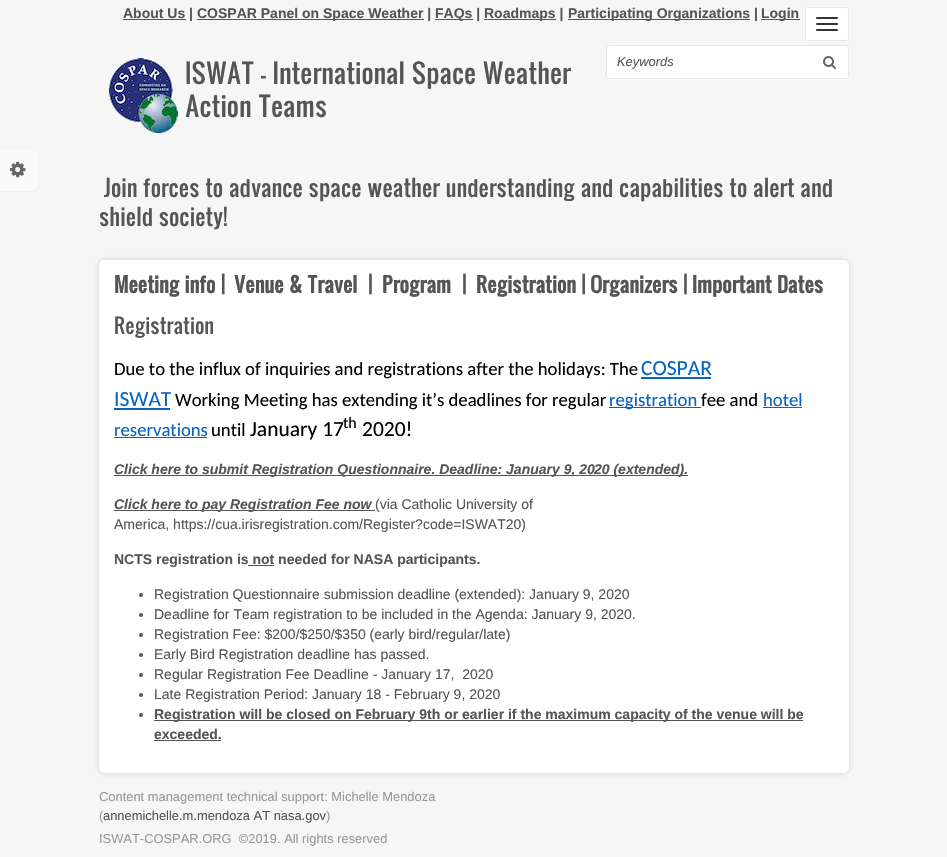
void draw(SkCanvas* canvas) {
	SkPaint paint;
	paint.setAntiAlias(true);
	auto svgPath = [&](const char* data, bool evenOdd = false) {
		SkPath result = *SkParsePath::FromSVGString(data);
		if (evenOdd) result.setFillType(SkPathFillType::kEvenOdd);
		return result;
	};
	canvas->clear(0xfff6f6f6);
	paint.setColor(0xff888888);
	paint.setMaskFilter(SkMaskFilter::MakeBlur(kNormal_SkBlurStyle, 1));
	canvas->drawRoundRect(SkRect::MakeXYWH(0, 153, 37, 37), 3, 3, paint);
	paint.setMaskFilter(nullptr);
	paint.setColor(0xfffafafa);
	canvas->drawPath(svgPath("M-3 150H33C36 150 38 152 38 155V186C38 189 36 191 33 191H-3Z"), paint);
	canvas->drawImageRect(SkImages::DeferredFromEncodedData(SkData::MakeFromFileName("img1.png")), SkRect::MakeXYWH(10, 161, 16, 17), SkSamplingOptions());
	paint.setColor(0xff555555);
	canvas->drawRect(SkRect::MakeXYWH(123, 19, 63, 1), paint);
	SkFont f1(fontMgr->matchFamilyStyle("Liberation Sans", SkFontStyle::Bold()), 14);
	f1.setSubpixel(true);
	canvas->drawString("About Us |", 123, 18, f1, paint);
	canvas->drawRect(SkRect::MakeXYWH(197, 19, 227, 1), paint);
	canvas->drawString("COSPAR Panel on Space Weather |", 197, 18, f1, paint);
	canvas->drawRect(SkRect::MakeXYWH(435, 19, 38, 1), paint);
	canvas->drawString("FAQs |", 435, 18, f1, paint);
	canvas->drawRect(SkRect::MakeXYWH(484, 19, 72, 1), paint);
	canvas->drawString("Roadmaps |", 484, 18, f1, paint);
	canvas->drawRect(SkRect::MakeXYWH(568, 19, 182, 1), paint);
	canvas->drawString("Participating Organizations |", 568, 18, f1, paint);
	canvas->drawRect(SkRect::MakeXYWH(761, 19, 39, 1), paint);
	canvas->drawString("Login", 761, 18, f1, paint);
	paint.setColor(0xffffffff);
	canvas->drawRoundRect(SkRect::MakeXYWH(606.5, 45.5, 242, 33), 2.5, 2.5, paint);
	paint.setStroke(true);
	paint.setStrokeWidth(1);
	paint.setColor(0xffe7e8e9);
	canvas->drawRoundRect(SkRect::MakeXYWH(606.5, 45.5, 242, 33), 2.5, 2.5, paint);
	SkFont f2(fontMgr->matchFamilyStyle("Liberation Sans", SkFontStyle::Italic()), 12.9);
	f2.setSubpixel(true);
	paint.setStroke(false);
	paint.setColor(0xff555555);
	canvas->drawString("Keywords", 617, 66, f2, paint);
	canvas->drawImageRect(SkImages::DeferredFromEncodedData(SkData::MakeFromFileName("img2.png")), SkRect::MakeXYWH(823, 56, 13, 13), SkSamplingOptions());
	canvas->drawImageRect(SkImages::DeferredFromEncodedData(SkData::MakeFromFileName("img3.png")), SkRect::MakeXYWH(109, 58, 69, 75), SkSamplingOptions());
	SkFont f3(fontMgr->matchFamilyStyle("Oswald", SkFontStyle::Normal()), 25.75);
	f3.setSubpixel(true);
	canvas->drawString("ISWAT - International Space Weather", 185, 84, f3, paint);
	canvas->drawString("Action Teams", 185, 117, f3, paint);
	SkFont f4(fontMgr->matchFamilyStyle("Oswald", SkFontStyle::Normal()), 22);
	f4.setSubpixel(true);
	canvas->drawString("Join forces to advance space weather understanding and capabilities to alert and", 104, 197, f4, paint);
	canvas->drawString("shield society!", 99, 226, f4, paint);
	paint.setColor(0xffffffff);
	canvas->drawRoundRect(SkRect::MakeXYWH(805.5, 7.5, 43, 33), 2.5, 2.5, paint);
	paint.setStroke(true);
	paint.setColor(0xffe7e8e9);
	canvas->drawRoundRect(SkRect::MakeXYWH(805.5, 7.5, 43, 33), 2.5, 2.5, paint);
	paint.setStroke(false);
	paint.setColor(0xff333333);
	canvas->drawRoundRect(SkRect::MakeXYWH(816, 17, 22, 2), 1, 1, paint);
	canvas->drawRoundRect(SkRect::MakeXYWH(816, 23, 22, 2), 1, 1, paint);
	canvas->drawRoundRect(SkRect::MakeXYWH(816, 29, 22, 2), 1, 1, paint);
	paint.setColor(0xffcccccc);
	paint.setMaskFilter(SkMaskFilter::MakeBlur(kNormal_SkBlurStyle, 2.5));
	canvas->drawRoundRect(SkRect::MakeXYWH(99, 260, 750, 513), 5, 5, paint);
	paint.setMaskFilter(nullptr);
	paint.setColor(0xffffffff);
	canvas->drawRoundRect(SkRect::MakeXYWH(99, 260, 750, 513), 5, 5, paint);
	SkFont f5(fontMgr->matchFamilyStyle("Oswald", SkFontStyle::Bold()), 20);
	f5.setSubpixel(true);
	paint.setColor(0xff555555);
	canvas->drawString("Meeting info |", 114, 293, f5, paint);
	canvas->drawString("Venue & Travel", 234, 293, f5, paint);
	canvas->drawString("|", 368, 293, f5, paint);
	canvas->drawString("Program", 382, 293, f5, paint);
	canvas->drawString("|", 462, 293, f5, paint);
	canvas->drawString("Registration | Organizers | Important Dates", 476, 293, f5, paint);
	SkFont f6(fontMgr->matchFamilyStyle("Oswald", SkFontStyle::Normal()), 20);
	f6.setSubpixel(true);
	canvas->drawString("Registration", 114, 334, f6, paint);
	SkFont f7(fontMgr->matchFamilyStyle("Carlito", SkFontStyle::Normal()), 18.7);
	f7.setSubpixel(true);
	paint.setColor(0xff000000);
	canvas->drawString("Due to the influx of inquiries and registrations after the holidays: The", 114, 375, f7, paint);
	SkFont f8(fontMgr->matchFamilyStyle("Carlito", SkFontStyle::Normal()), 21.5);
	f8.setSubpixel(true);
	paint.setColor(0xff0563c1);
	canvas->drawString("COSPAR", 641, 375, f8, paint);
	canvas->drawRect(SkRect::MakeXYWH(641, 377, 70, 2), paint);
	canvas->drawString("ISWAT", 114, 406, f8, paint);
	canvas->drawRect(SkRect::MakeXYWH(114, 408, 56, 2), paint);
	paint.setColor(0xff000000);
	canvas->drawString("Working Meeting has extending it’s deadlines for regular", 175, 406, f7, paint);
	paint.setColor(0xff0563c1);
	canvas->drawRect(SkRect::MakeXYWH(609, 407, 92, 1), paint);
	canvas->drawString("registration", 609, 406, f7, paint);
	paint.setColor(0xff000000);
	canvas->drawString("fee and", 701, 406, f7, paint);
	paint.setColor(0xff0563c1);
	canvas->drawString("hotel", 763, 406, f7, paint);
	canvas->drawRect(SkRect::MakeXYWH(763, 407, 39, 1), paint);
	canvas->drawString("reservations", 114, 436, f7, paint);
	canvas->drawRect(SkRect::MakeXYWH(114, 437, 93, 1), paint);
	paint.setColor(0xff000000);
	canvas->drawString("until", 211, 436, f7, paint);
	canvas->drawString("January 17", 250, 436, f8, paint);
	SkFont f9(fontMgr->matchFamilyStyle("Carlito", SkFontStyle::Normal()), 16);
	f9.setSubpixel(true);
	canvas->drawString("th", 343, 428, f9, paint);
	canvas->drawString("2020!", 362, 436, f8, paint);
	paint.setColor(0xff555555);
	canvas->drawRect(SkRect::MakeXYWH(114, 475, 480, 1), paint);
	SkFont f10(fontMgr->matchFamilyStyle("Liberation Sans", SkFontStyle::BoldItalic()), 14);
	f10.setSubpixel(true);
	canvas->drawString("Click here to submit Registration Questionnaire. Deadline: January 9, 20", 114, 474, f10, paint);
	canvas->drawRect(SkRect::MakeXYWH(594, 475, 94, 1), paint);
	canvas->drawString("20 (extended).", 594, 474, f10, paint);
	canvas->drawRect(SkRect::MakeXYWH(114, 510, 261, 1), paint);
	canvas->drawString("Click here to pay Registration Fee now", 114, 509, f10, paint);
	SkFont f11(fontMgr->matchFamilyStyle("Liberation Sans", SkFontStyle::Normal()), 14);
	f11.setSubpixel(true);
	canvas->drawString("(via Catholic University of", 375, 509, f11, paint);
	canvas->drawString("America, https://cua.irisregistration.com/Register?code=ISWAT20)", 114, 529, f11, paint);
	canvas->drawString("NCTS registration is not needed for NASA participants.", 114, 564, f1, paint);
	canvas->drawRect(SkRect::MakeXYWH(248, 565, 26, 1), paint);
	canvas->drawCircle(141, 595, 2, paint);
	canvas->drawString("Registration Questionnaire submission deadline (extended): January 9, 2020", 154, 599, f11, paint);
	canvas->drawCircle(141, 615, 2, paint);
	canvas->drawString("Deadline for Team registration to be included in the Agenda: January 9, 2020.", 154, 619, f11, paint);
	canvas->drawCircle(141, 635, 2, paint);
	canvas->drawString("Registration Fee: $200/$250/$350 (early bird/regular/late)", 154, 639, f11, paint);
	canvas->drawCircle(141, 655, 2, paint);
	canvas->drawString("Early Bird Registration deadline has passed.", 154, 659, f11, paint);
	canvas->drawCircle(141, 675, 2, paint);
	canvas->drawString("Regular Registration Fee Deadline - January 17,  2020", 154, 679, f11, paint);
	canvas->drawCircle(141, 695, 2, paint);
	canvas->drawString("Late Registration Period: January 18 - February 9, 2020", 154, 699, f11, paint);
	canvas->drawCircle(141, 715, 2, paint);
	canvas->drawRect(SkRect::MakeXYWH(154, 720, 649, 1), paint);
	canvas->drawString("Registration will be closed on February 9th or earlier if the maximum capacity of the venue will be", 154, 719, f1, paint);
	canvas->drawString("exceeded.", 154, 739, f1, paint);
	canvas->drawRect(SkRect::MakeXYWH(154, 740, 67, 1), paint);
	SkFont f12(fontMgr->matchFamilyStyle("Liberation Sans", SkFontStyle::Normal()), 12.9);
	f12.setSubpixel(true);
	paint.setColor(0xff999999);
	canvas->drawString("Content management technical support: Michelle Mendoza", 99, 801, f12, paint);
	canvas->drawString("(", 99, 820, f12, paint);
	paint.setColor(0xff555555);
	canvas->drawString("annemichelle.m.mendoza AT nasa.gov", 103, 820, f12, paint);
	paint.setColor(0xff999999);
	canvas->drawString(")", 326, 820, f12, paint);
	canvas->drawString("ISWAT-COSPAR.ORG  ©2019. All rights reserved", 99, 843, f12, paint);
}
